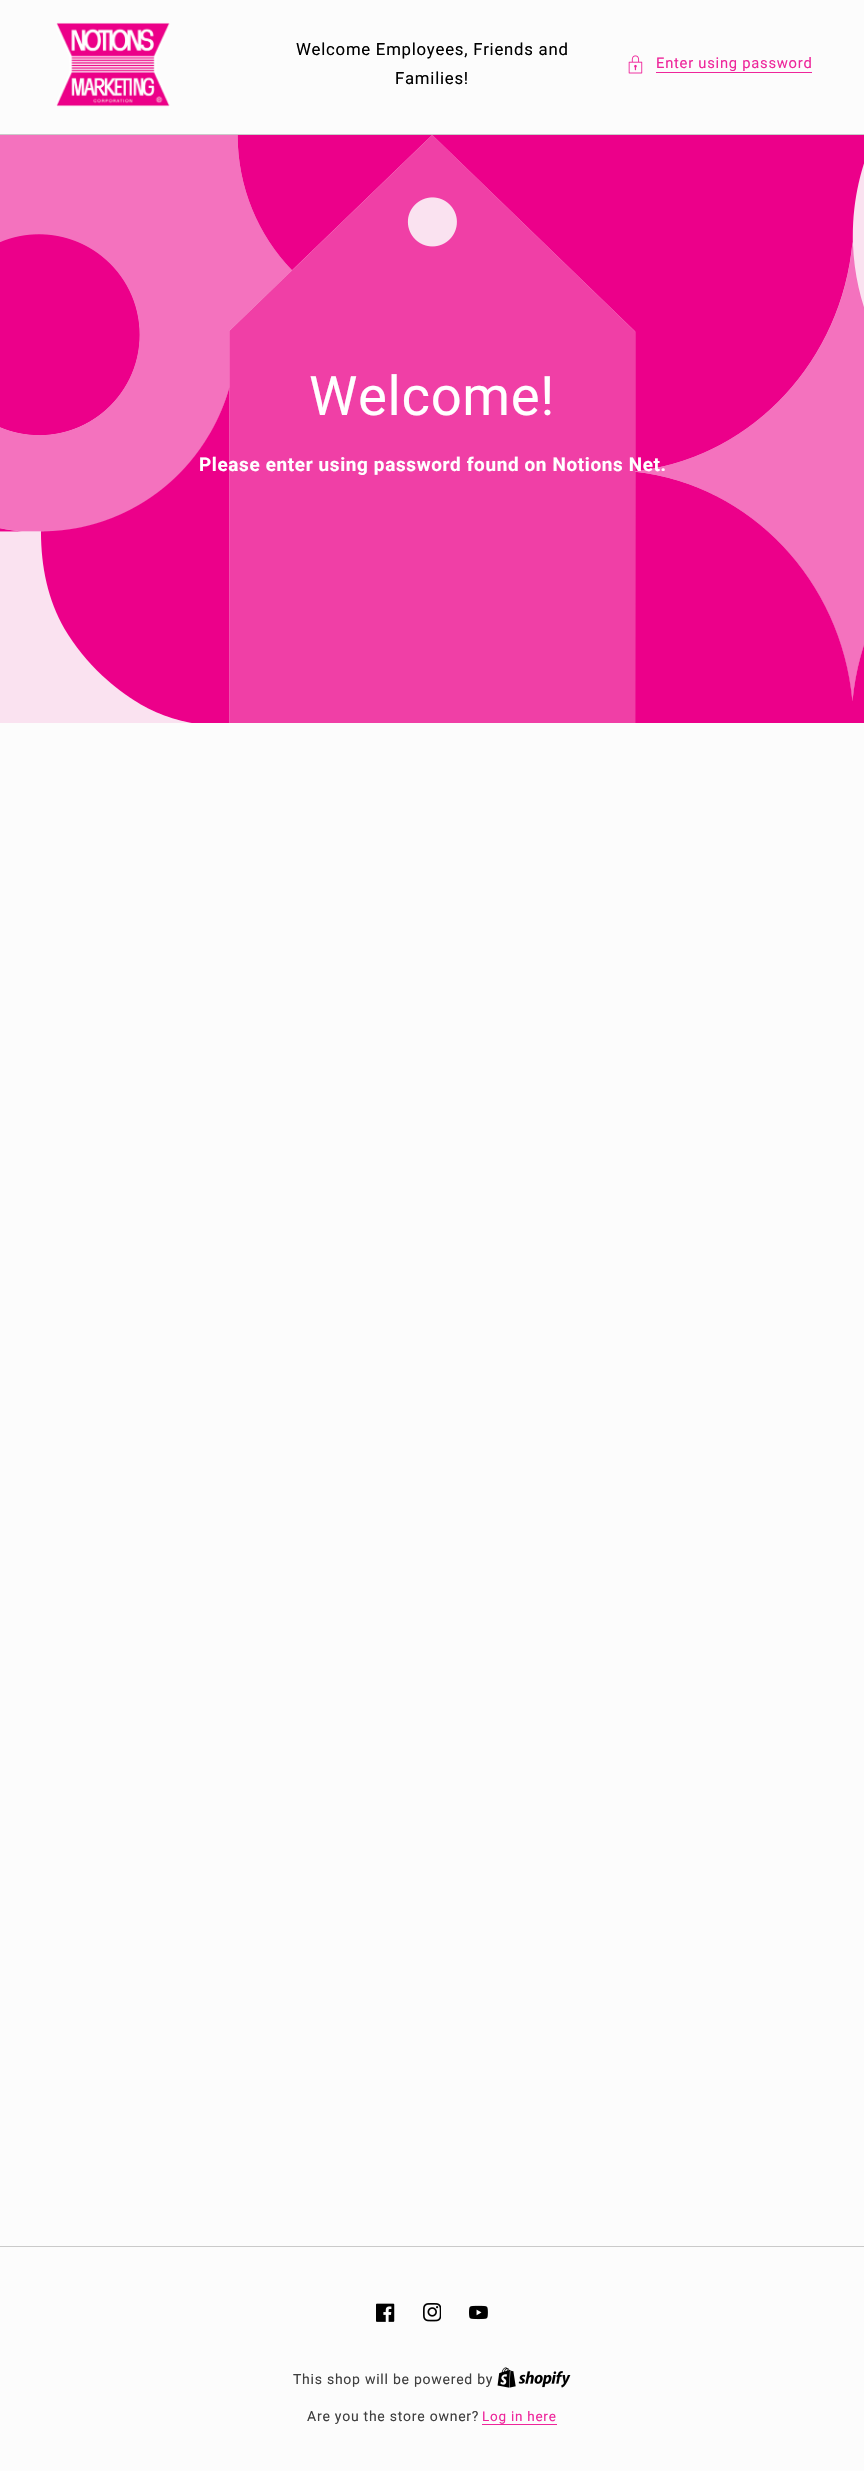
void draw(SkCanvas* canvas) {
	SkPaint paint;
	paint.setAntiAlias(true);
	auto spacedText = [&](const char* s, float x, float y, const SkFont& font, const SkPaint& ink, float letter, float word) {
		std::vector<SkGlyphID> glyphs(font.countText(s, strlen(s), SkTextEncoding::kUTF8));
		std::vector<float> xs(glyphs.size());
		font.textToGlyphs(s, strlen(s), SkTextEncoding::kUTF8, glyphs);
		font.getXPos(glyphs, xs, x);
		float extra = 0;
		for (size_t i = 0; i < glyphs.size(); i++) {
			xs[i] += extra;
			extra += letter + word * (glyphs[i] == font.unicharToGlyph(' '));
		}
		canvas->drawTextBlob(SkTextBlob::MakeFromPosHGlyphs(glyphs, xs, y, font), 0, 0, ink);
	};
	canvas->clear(0xfffcfcfc);
	canvas->drawImageRect(SkImages::DeferredFromEncodedData(SkData::MakeFromFileName("img1.png")), SkRect::MakeXYWH(56, 22, 114, 85), SkSamplingOptions());
	SkFont f1(fontMgr->matchFamilyStyle("Roboto", SkFontStyle::Normal()), 16.75);
	f1.setSubpixel(true);
	paint.setColor(0xff000000);
	spacedText("Welcome Employees, Friends and", 296, 55, f1, paint, 0.75, 0);
	spacedText("Families!", 395, 84, f1, paint, 0.75, 0);
	canvas->drawImageRect(SkImages::DeferredFromEncodedData(SkData::MakeFromFileName("img2.png")), SkRect::MakeXYWH(628, 55, 15, 19), SkSamplingOptions());
	SkFont f2(fontMgr->matchFamilyStyle("Roboto", SkFontStyle::Normal()), 14.75);
	f2.setSubpixel(true);
	paint.setColor(0xffee269b);
	spacedText("Enter using password", 656, 68, f2, paint, 0.75, 0);
	canvas->drawRect(SkRect::MakeXYWH(656, 72, 156, 1), paint);
	paint.setColor(0xffcacaca);
	canvas->drawRect(SkRect::MakeXYWH(0, 134, 864, 1), paint);
	canvas->drawImageRect(SkImages::DeferredFromEncodedData(SkData::MakeFromFileName("img3.png")), SkRect::MakeXYWH(0, 135, 864, 588), SkSamplingOptions());
	SkFont f3(fontMgr->matchFamilyStyle("Roboto", SkFontStyle::Normal()), 54.5);
	f3.setSubpixel(true);
	paint.setColor(0xffffffff);
	spacedText("Welcome!", 309, 415, f3, paint, 0.65, 0);
	SkFont f4(fontMgr->matchFamilyStyle("Roboto", SkFontStyle::Bold()), 18.9);
	f4.setSubpixel(true);
	spacedText("Please enter using password found on Notions Net.", 199, 471, f4, paint, 0.65, 0);
	paint.setColor(0xffcacaca);
	canvas->drawRect(SkRect::MakeXYWH(0, 2246, 864, 1), paint);
	canvas->drawImageRect(SkImages::DeferredFromEncodedData(SkData::MakeFromFileName("img4.png")), SkRect::MakeXYWH(376, 2303, 19, 19), SkSamplingOptions());
	canvas->drawImageRect(SkImages::DeferredFromEncodedData(SkData::MakeFromFileName("img5.png")), SkRect::MakeXYWH(423, 2303, 18, 19), SkSamplingOptions());
	canvas->drawImageRect(SkImages::DeferredFromEncodedData(SkData::MakeFromFileName("img6.png")), SkRect::MakeXYWH(469, 2305, 19, 15), SkSamplingOptions());
	SkFont f5(fontMgr->matchFamilyStyle("Roboto", SkFontStyle::Normal()), 14);
	f5.setSubpixel(true);
	paint.setColor(0xff3f3f3f);
	spacedText("This shop will be powered by", 293, 2384, f5, paint, 0.75, 0);
	canvas->drawImageRect(SkImages::DeferredFromEncodedData(SkData::MakeFromFileName("img7.png")), SkRect::MakeXYWH(497, 2367, 74, 21), SkSamplingOptions());
	spacedText("Are you the store owner?", 307, 2421, f5, paint, 0.75, 0);
	SkFont f6(fontMgr->matchFamilyStyle("Roboto", SkFontStyle::Normal()), 13.5);
	f6.setSubpixel(true);
	paint.setColor(0xffee269b);
	spacedText("Log in here", 482, 2421, f6, paint, 0.75, 0);
	canvas->drawRect(SkRect::MakeXYWH(482, 2424, 75, 1), paint);
}
